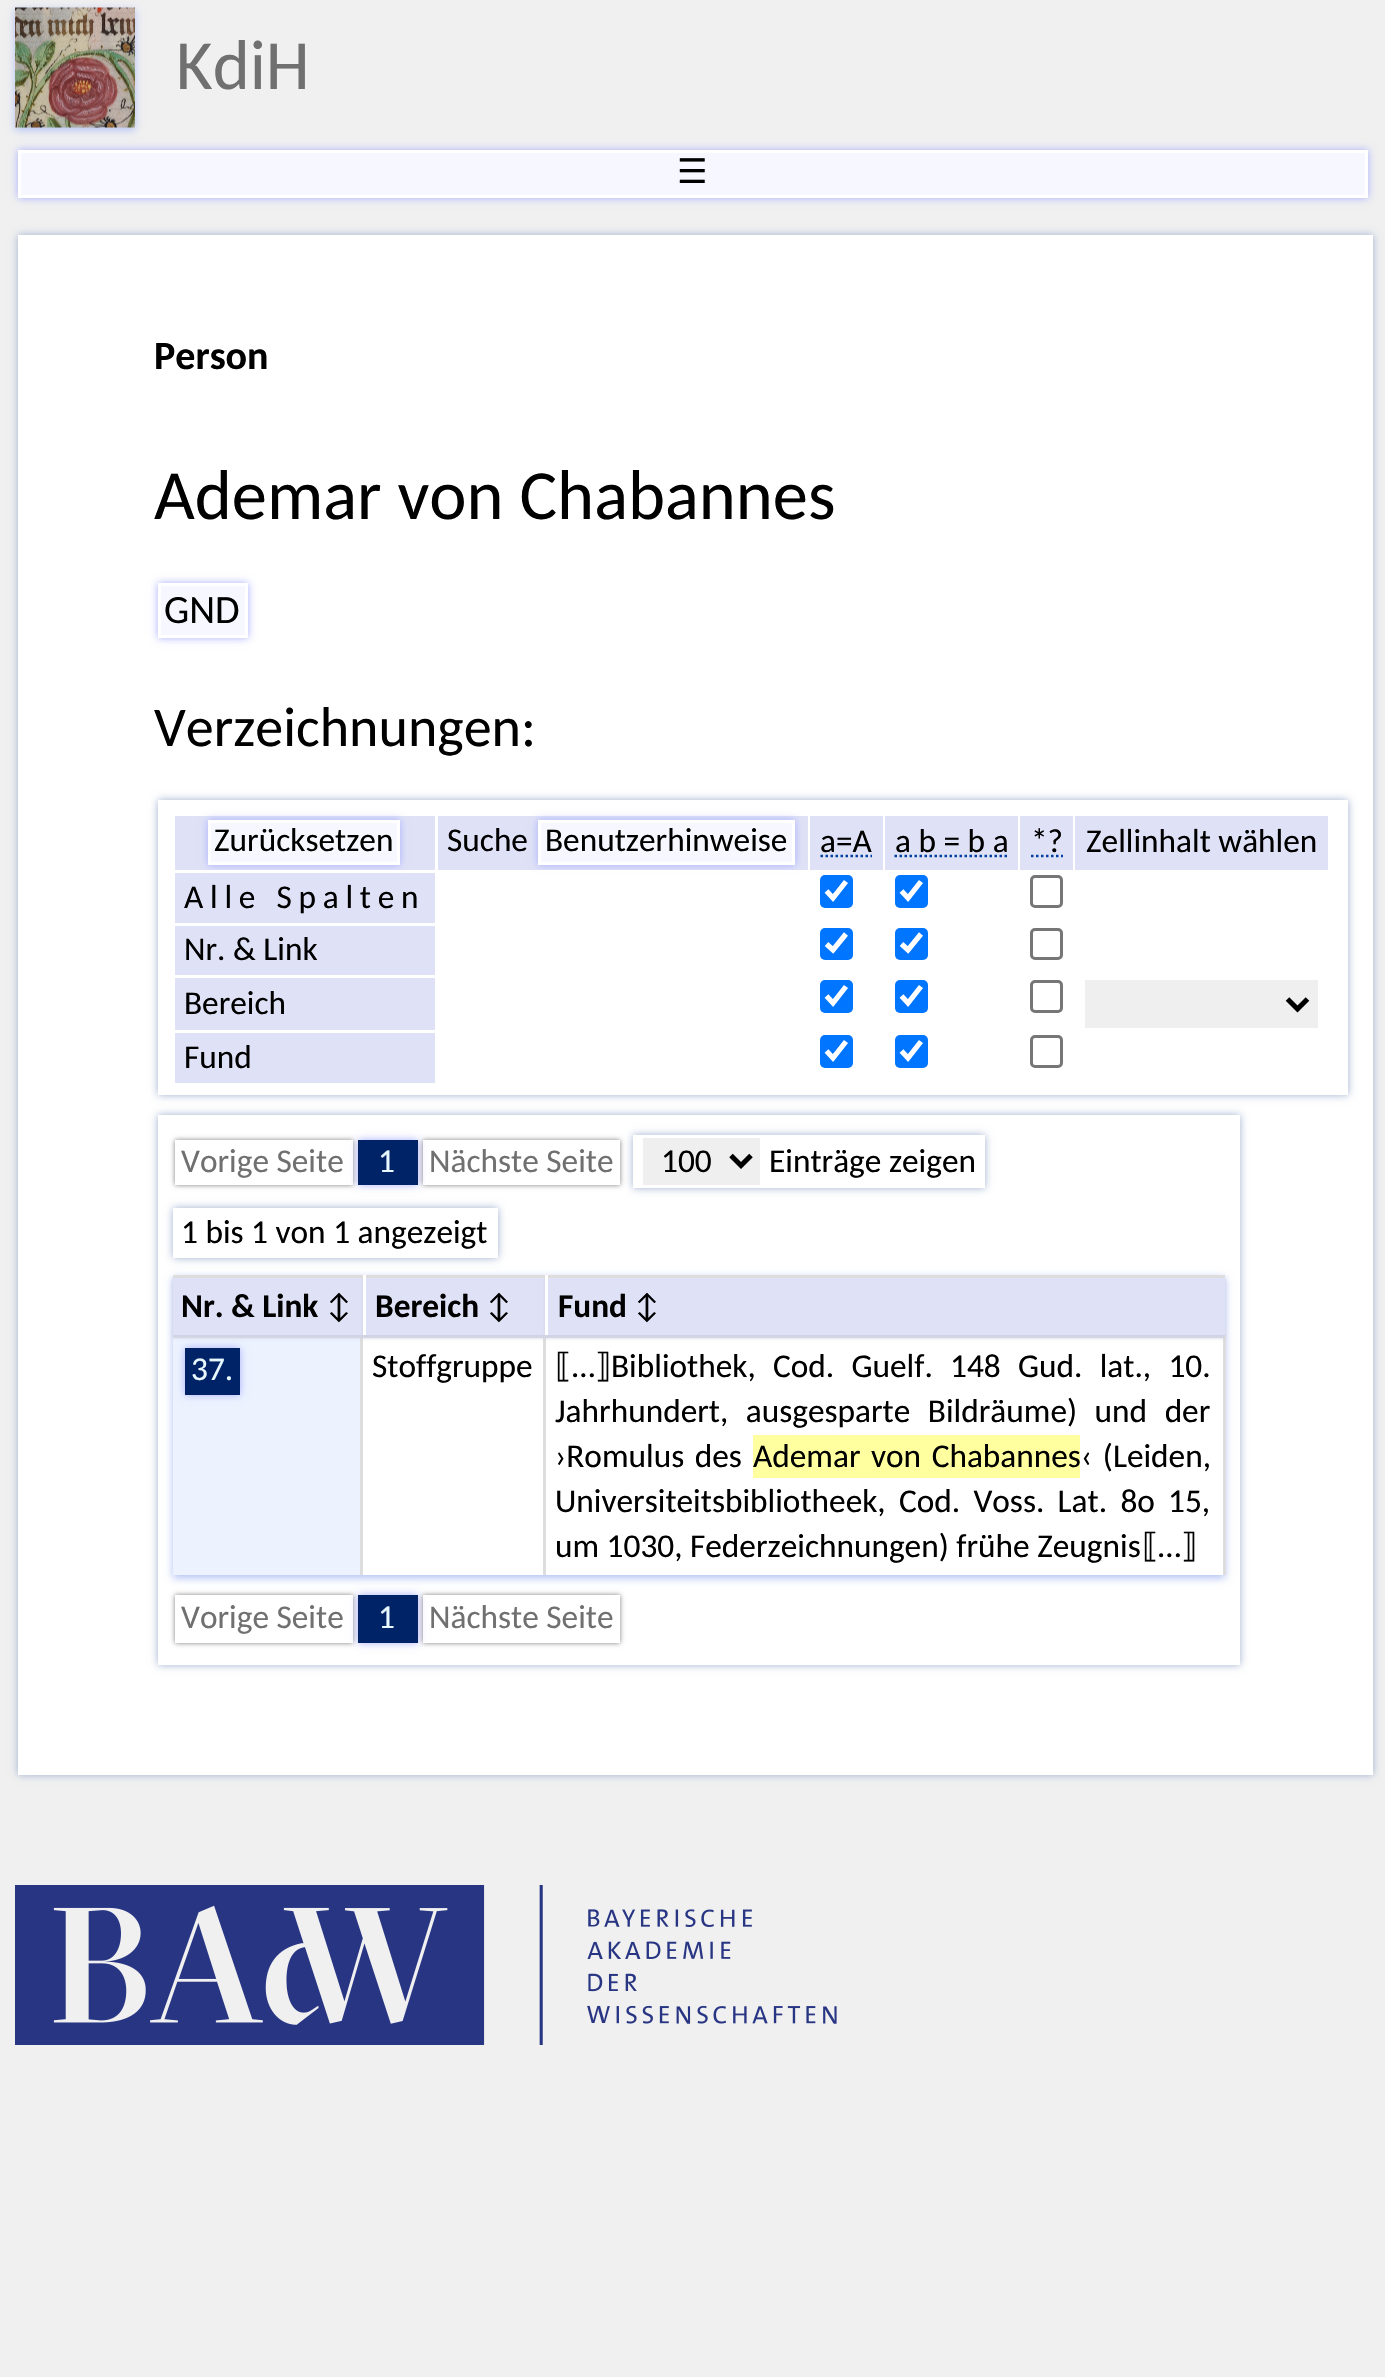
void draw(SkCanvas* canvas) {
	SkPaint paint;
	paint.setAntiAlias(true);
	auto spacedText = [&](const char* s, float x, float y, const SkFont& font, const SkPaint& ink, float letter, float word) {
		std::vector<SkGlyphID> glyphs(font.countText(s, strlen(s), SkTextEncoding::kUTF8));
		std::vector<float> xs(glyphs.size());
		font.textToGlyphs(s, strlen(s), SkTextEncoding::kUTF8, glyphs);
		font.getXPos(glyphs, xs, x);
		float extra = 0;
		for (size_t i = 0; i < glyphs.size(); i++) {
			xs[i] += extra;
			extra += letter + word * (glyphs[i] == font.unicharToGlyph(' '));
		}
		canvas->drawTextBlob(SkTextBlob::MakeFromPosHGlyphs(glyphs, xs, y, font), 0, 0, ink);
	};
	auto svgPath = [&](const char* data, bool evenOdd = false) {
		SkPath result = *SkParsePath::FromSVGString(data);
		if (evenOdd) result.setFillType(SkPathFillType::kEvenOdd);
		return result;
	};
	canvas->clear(0xfff0f0f0);
	paint.setColor(0xffb0c0f4);
	paint.setMaskFilter(SkMaskFilter::MakeBlur(kNormal_SkBlurStyle, 4));
	canvas->drawRect(SkRect::MakeXYWH(15, 10, 120, 120), paint);
	paint.setMaskFilter(nullptr);
	canvas->drawImageRect(SkImages::DeferredFromEncodedData(SkData::MakeFromFileName("img1.png")), SkRect::MakeXYWH(15, 7, 120, 121), SkSamplingOptions());
	SkFont f1(fontMgr->matchFamilyStyle("Carlito", SkFontStyle::Normal()), 70.5);
	f1.setSubpixel(true);
	paint.setColor(0xff707070);
	canvas->drawString("KdiH", 176, 89, f1, paint);
	paint.setColor(0xffaaafff);
	paint.setMaskFilter(SkMaskFilter::MakeBlur(kNormal_SkBlurStyle, 4));
	canvas->drawRect(SkRect::MakeXYWH(18, 150, 1350, 48), paint);
	paint.setMaskFilter(nullptr);
	paint.setColor(0xfff7f8ff);
	canvas->drawRect(SkRect::MakeXYWH(19.5, 151.5, 1347, 45), paint);
	paint.setStroke(true);
	paint.setStrokeWidth(3);
	paint.setColor(0xffffffff);
	canvas->drawRect(SkRect::MakeXYWH(19.5, 151.5, 1347, 45), paint);
	SkFont f2(fontMgr->matchFamilyStyle("DejaVu Sans", SkFontStyle::Normal()), 34);
	f2.setSubpixel(true);
	paint.setStroke(false);
	paint.setColor(0xff000000);
	canvas->drawString("☰", 677, 183, f2, paint);
	paint.setColor(0xffa0b0d0);
	paint.setMaskFilter(SkMaskFilter::MakeBlur(kNormal_SkBlurStyle, 4));
	canvas->drawRect(SkRect::MakeXYWH(18, 235, 1355, 1540), paint);
	paint.setMaskFilter(nullptr);
	paint.setColor(0xffffffff);
	canvas->drawRect(SkRect::MakeXYWH(18, 235, 1355, 1540), paint);
	SkFont f3(fontMgr->matchFamilyStyle("Carlito", SkFontStyle::Bold()), 40);
	f3.setSubpixel(true);
	paint.setColor(0xff000000);
	canvas->drawString("Person", 154, 369, f3, paint);
	canvas->drawString("Ademar von Chabannes", 154, 519, f1, paint);
	paint.setColor(0xffaaafff);
	paint.setMaskFilter(SkMaskFilter::MakeBlur(kNormal_SkBlurStyle, 4));
	canvas->drawRect(SkRect::MakeXYWH(158, 583, 90, 55), paint);
	paint.setMaskFilter(nullptr);
	paint.setColor(0xfff7f8ff);
	canvas->drawRect(SkRect::MakeXYWH(159.5, 584.5, 87, 52), paint);
	paint.setStroke(true);
	paint.setColor(0xffffffff);
	canvas->drawRect(SkRect::MakeXYWH(159.5, 584.5, 87, 52), paint);
	SkFont f4(fontMgr->matchFamilyStyle("Carlito", SkFontStyle::Normal()), 40);
	f4.setSubpixel(true);
	paint.setStroke(false);
	paint.setColor(0xff000000);
	canvas->drawString("GND", 164, 623, f4, paint);
	SkFont f5(fontMgr->matchFamilyStyle("Carlito", SkFontStyle::Normal()), 56);
	f5.setSubpixel(true);
	canvas->drawString("Verzeichnungen:", 154, 746, f5, paint);
	paint.setColor(0xffa0b0d0);
	paint.setMaskFilter(SkMaskFilter::MakeBlur(kNormal_SkBlurStyle, 4));
	canvas->drawRect(SkRect::MakeXYWH(158, 800, 1190, 295), paint);
	paint.setMaskFilter(nullptr);
	paint.setColor(0xffffffff);
	canvas->drawRect(SkRect::MakeXYWH(158, 800, 1190, 295), paint);
	paint.setColor(0xffdfe2f6);
	canvas->drawRect(SkRect::MakeXYWH(175, 816, 260, 54), paint);
	paint.setColor(0xffaaafff);
	paint.setMaskFilter(SkMaskFilter::MakeBlur(kNormal_SkBlurStyle, 4));
	canvas->drawRect(SkRect::MakeXYWH(208, 820, 192, 45), paint);
	paint.setMaskFilter(nullptr);
	paint.setColor(0xfff7f8ff);
	canvas->drawRect(SkRect::MakeXYWH(209.5, 821.5, 189, 42), paint);
	paint.setStroke(true);
	paint.setColor(0xffffffff);
	canvas->drawRect(SkRect::MakeXYWH(209.5, 821.5, 189, 42), paint);
	SkFont f6(fontMgr->matchFamilyStyle("Carlito", SkFontStyle::Normal()), 33.3);
	f6.setSubpixel(true);
	paint.setStroke(false);
	paint.setColor(0xff000000);
	canvas->drawString("Zurücksetzen", 214, 851, f6, paint);
	paint.setColor(0xffdfe2f6);
	canvas->drawRect(SkRect::MakeXYWH(438, 816, 370, 54), paint);
	paint.setColor(0xff000000);
	canvas->drawString("Suche", 447, 851, f6, paint);
	paint.setColor(0xffaaafff);
	paint.setMaskFilter(SkMaskFilter::MakeBlur(kNormal_SkBlurStyle, 4));
	canvas->drawRect(SkRect::MakeXYWH(538, 820, 257, 45), paint);
	paint.setMaskFilter(nullptr);
	paint.setColor(0xfff7f8ff);
	canvas->drawRect(SkRect::MakeXYWH(539.5, 821.5, 254, 42), paint);
	paint.setStroke(true);
	paint.setColor(0xffffffff);
	canvas->drawRect(SkRect::MakeXYWH(539.5, 821.5, 254, 42), paint);
	paint.setStroke(false);
	paint.setColor(0xff000000);
	canvas->drawString("Benutzerhinweise", 545, 851, f6, paint);
	paint.setColor(0xffdfe2f6);
	canvas->drawRect(SkRect::MakeXYWH(810, 816, 73, 54), paint);
	paint.setColor(0xff000000);
	canvas->drawString("a=A", 820, 852, f6, paint);
	paint.setStroke(true);
	paint.setStrokeWidth(2.5);
	paint.setColor(0xff0040a0);
	paint.setPathEffect(SkDashPathEffect::Make({{2.5f, 2.5f}}, 0));
	canvas->drawPath(svgPath("M820.5 856H872"), paint);
	paint.setPathEffect(nullptr);
	paint.setStroke(false);
	paint.setColor(0xffdfe2f6);
	canvas->drawRect(SkRect::MakeXYWH(885, 816, 133, 54), paint);
	paint.setColor(0xff000000);
	canvas->drawString("a b = b a", 895, 852, f6, paint);
	paint.setStroke(true);
	paint.setColor(0xff0040a0);
	paint.setPathEffect(SkDashPathEffect::Make({{2.5f, 2.5f}}, 0));
	canvas->drawPath(svgPath("M894.5 856H1008.5"), paint);
	paint.setPathEffect(nullptr);
	paint.setStroke(false);
	paint.setColor(0xffdfe2f6);
	canvas->drawRect(SkRect::MakeXYWH(1020, 816, 53, 54), paint);
	paint.setColor(0xff000000);
	canvas->drawString("*?", 1031, 852, f6, paint);
	paint.setStroke(true);
	paint.setColor(0xff0040a0);
	paint.setPathEffect(SkDashPathEffect::Make({{2.5f, 2.5f}}, 0));
	canvas->drawPath(svgPath("M1031 856H1063"), paint);
	paint.setPathEffect(nullptr);
	paint.setStroke(false);
	paint.setColor(0xffdfe2f6);
	canvas->drawRect(SkRect::MakeXYWH(1075, 816, 253, 54), paint);
	paint.setColor(0xff000000);
	canvas->drawString("Zellinhalt wählen", 1086, 852, f6, paint);
	paint.setColor(0xffffffff);
	canvas->drawRect(SkRect::MakeXYWH(537, 870, 259, 3), paint);
	paint.setColor(0xffdfe2f6);
	canvas->drawRect(SkRect::MakeXYWH(175, 873, 260, 50), paint);
	paint.setColor(0xffffffff);
	canvas->drawRect(SkRect::MakeXYWH(207, 870, 194, 3), paint);
	paint.setColor(0xff000000);
	spacedText("Alle Spalten", 184, 908, f6, paint, 6.75, 0);
	paint.setColor(0xff0075ff);
	canvas->drawRoundRect(SkRect::MakeXYWH(820, 875, 33, 33), 5, 5, paint);
	paint.setStroke(true);
	paint.setStrokeWidth(5.2);
	paint.setColor(0xffffffff);
	canvas->drawPath(svgPath("M826.5 891L833 898L846 881.5"), paint);
	paint.setStroke(false);
	paint.setColor(0xff0075ff);
	canvas->drawRoundRect(SkRect::MakeXYWH(895, 875, 33, 33), 5, 5, paint);
	paint.setStroke(true);
	paint.setColor(0xffffffff);
	canvas->drawPath(svgPath("M901.5 891L908 898L921 881.5"), paint);
	paint.setStrokeWidth(3);
	paint.setColor(0xff767676);
	canvas->drawRoundRect(SkRect::MakeXYWH(1031.5, 876.5, 30, 30), 3.5, 3.5, paint);
	paint.setStroke(false);
	paint.setColor(0xffdfe2f6);
	canvas->drawRect(SkRect::MakeXYWH(175, 926, 260, 49), paint);
	paint.setColor(0xff000000);
	canvas->drawString("Nr. & Link", 184, 960, f6, paint);
	paint.setColor(0xff0075ff);
	canvas->drawRoundRect(SkRect::MakeXYWH(820, 928, 33, 32), 5, 5, paint);
	paint.setStroke(true);
	paint.setStrokeWidth(5.2);
	paint.setColor(0xffffffff);
	canvas->drawPath(svgPath("M826.5 944L833 950L846 934"), paint);
	paint.setStroke(false);
	paint.setColor(0xff0075ff);
	canvas->drawRoundRect(SkRect::MakeXYWH(895, 928, 33, 32), 5, 5, paint);
	paint.setStroke(true);
	paint.setColor(0xffffffff);
	canvas->drawPath(svgPath("M901.5 944L908 950L921 934"), paint);
	paint.setStrokeWidth(3);
	paint.setColor(0xff767676);
	canvas->drawRoundRect(SkRect::MakeXYWH(1031.5, 929.5, 30, 29), 3.5, 3.5, paint);
	paint.setStroke(false);
	paint.setColor(0xffdfe2f6);
	canvas->drawRect(SkRect::MakeXYWH(175, 978, 260, 52), paint);
	paint.setColor(0xff000000);
	canvas->drawString("Bereich", 184, 1014, f6, paint);
	paint.setColor(0xff0075ff);
	canvas->drawRoundRect(SkRect::MakeXYWH(820, 980, 33, 33), 5, 5, paint);
	paint.setStroke(true);
	paint.setStrokeWidth(5.2);
	paint.setColor(0xffffffff);
	canvas->drawPath(svgPath("M826.5 996L833 1003L846 986.5"), paint);
	paint.setStroke(false);
	paint.setColor(0xff0075ff);
	canvas->drawRoundRect(SkRect::MakeXYWH(895, 980, 33, 33), 5, 5, paint);
	paint.setStroke(true);
	paint.setColor(0xffffffff);
	canvas->drawPath(svgPath("M901.5 996L908 1003L921 986.5"), paint);
	paint.setStrokeWidth(3);
	paint.setColor(0xff767676);
	canvas->drawRoundRect(SkRect::MakeXYWH(1031.5, 981.5, 30, 30), 3.5, 3.5, paint);
	paint.setStroke(false);
	paint.setColor(0xffefefef);
	canvas->drawRect(SkRect::MakeXYWH(1085, 980, 233, 48), paint);
	paint.setStroke(true);
	paint.setStrokeWidth(5);
	paint.setColor(0xff000000);
	canvas->drawPath(svgPath("M1287.5 999L1297.5 1009L1307.5 999"), paint);
	paint.setStroke(false);
	paint.setColor(0xffdfe2f6);
	canvas->drawRect(SkRect::MakeXYWH(175, 1033, 260, 50), paint);
	paint.setColor(0xff000000);
	canvas->drawString("Fund", 184, 1068, f6, paint);
	paint.setColor(0xff0075ff);
	canvas->drawRoundRect(SkRect::MakeXYWH(820, 1035, 33, 33), 5, 5, paint);
	paint.setStroke(true);
	paint.setStrokeWidth(5.2);
	paint.setColor(0xffffffff);
	canvas->drawPath(svgPath("M826.5 1051L833 1058L846 1041.5"), paint);
	paint.setStroke(false);
	paint.setColor(0xff0075ff);
	canvas->drawRoundRect(SkRect::MakeXYWH(895, 1035, 33, 33), 5, 5, paint);
	paint.setStroke(true);
	paint.setColor(0xffffffff);
	canvas->drawPath(svgPath("M901.5 1051L908 1058L921 1041.5"), paint);
	paint.setStrokeWidth(3);
	paint.setColor(0xff767676);
	canvas->drawRoundRect(SkRect::MakeXYWH(1031.5, 1036.5, 30, 30), 3.5, 3.5, paint);
	canvas->save();
	canvas->clipPath(svgPath("M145 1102H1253V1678H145ZM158 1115H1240V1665H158Z", true), true);
	paint.setStroke(false);
	paint.setColor(0xffa0b0d0);
	paint.setMaskFilter(SkMaskFilter::MakeBlur(kNormal_SkBlurStyle, 4));
	canvas->drawRect(SkRect::MakeXYWH(158, 1115, 1082, 550), paint);
	paint.setMaskFilter(nullptr);
	canvas->restore();
	canvas->save();
	canvas->clipPath(svgPath("M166 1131H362V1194H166ZM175 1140H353V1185H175Z", true), true);
	paint.setColor(0xff808080);
	paint.setMaskFilter(SkMaskFilter::MakeBlur(kNormal_SkBlurStyle, 2.5));
	canvas->drawRect(SkRect::MakeXYWH(175, 1140, 178, 45), paint);
	paint.setMaskFilter(nullptr);
	canvas->restore();
	paint.setColor(0xff707070);
	canvas->drawString("Vorige Seite", 181, 1172, f6, paint);
	paint.setColor(0xffaaafff);
	paint.setMaskFilter(SkMaskFilter::MakeBlur(kNormal_SkBlurStyle, 4));
	canvas->drawRect(SkRect::MakeXYWH(358, 1140, 60, 45), paint);
	paint.setMaskFilter(nullptr);
	paint.setColor(0xff002266);
	canvas->drawRect(SkRect::MakeXYWH(358, 1140, 60, 45), paint);
	paint.setColor(0xffe8f8ff);
	canvas->drawString("1", 378, 1172, f6, paint);
	canvas->save();
	canvas->clipPath(svgPath("M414 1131H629V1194H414ZM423 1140H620V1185H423Z", true), true);
	paint.setColor(0xff808080);
	paint.setMaskFilter(SkMaskFilter::MakeBlur(kNormal_SkBlurStyle, 2.5));
	canvas->drawRect(SkRect::MakeXYWH(423, 1140, 197, 45), paint);
	paint.setMaskFilter(nullptr);
	canvas->restore();
	paint.setColor(0xff707070);
	canvas->drawString("Nächste Seite", 429, 1172, f6, paint);
	canvas->save();
	canvas->clipPath(svgPath("M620 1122H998V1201H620ZM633 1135H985V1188H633Z", true), true);
	paint.setColor(0xffa0b0d0);
	paint.setMaskFilter(SkMaskFilter::MakeBlur(kNormal_SkBlurStyle, 4));
	canvas->drawRect(SkRect::MakeXYWH(633, 1135, 352, 53), paint);
	paint.setMaskFilter(nullptr);
	canvas->restore();
	paint.setColor(0xffefefef);
	canvas->drawRect(SkRect::MakeXYWH(643, 1138, 117, 47), paint);
	paint.setStroke(true);
	paint.setStrokeWidth(5);
	paint.setColor(0xff000000);
	canvas->drawPath(svgPath("M731 1155.5L741 1165.5L751 1155.5"), paint);
	paint.setStroke(false);
	canvas->drawString("100", 661, 1172, f6, paint);
	canvas->drawString("Einträge zeigen", 769, 1172, f6, paint);
	canvas->save();
	canvas->clipPath(svgPath("M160 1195H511V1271H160ZM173 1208H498V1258H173Z", true), true);
	paint.setColor(0xffa0b0d0);
	paint.setMaskFilter(SkMaskFilter::MakeBlur(kNormal_SkBlurStyle, 4));
	canvas->drawRect(SkRect::MakeXYWH(173, 1208, 325, 50), paint);
	paint.setMaskFilter(nullptr);
	canvas->restore();
	paint.setColor(0xff000000);
	canvas->drawString("1 bis 1 von 1 angezeigt", 181, 1243, f6, paint);
	canvas->save();
	canvas->clipPath(svgPath("M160 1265H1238V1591H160ZM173 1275H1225V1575H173Z", true), true);
	paint.setColor(0xffb0c0f4);
	paint.setMaskFilter(SkMaskFilter::MakeBlur(kNormal_SkBlurStyle, 4));
	canvas->drawRect(SkRect::MakeXYWH(173, 1278, 1052, 300), paint);
	paint.setMaskFilter(nullptr);
	canvas->restore();
	paint.setColor(0xffecf3fe);
	canvas->drawRect(SkRect::MakeXYWH(173, 1338, 187, 237), paint);
	paint.setColor(0xffdddddd);
	canvas->drawRect(SkRect::MakeXYWH(173, 1335, 372, 3), paint);
	canvas->drawRect(SkRect::MakeXYWH(360, 1335, 3, 240), paint);
	paint.setColor(0xffd0d2e6);
	paint.setMaskFilter(SkMaskFilter::MakeBlur(kNormal_SkBlurStyle, 1.5));
	canvas->drawRect(SkRect::MakeXYWH(173, 1278, 190, 60), paint);
	paint.setMaskFilter(nullptr);
	paint.setColor(0xffdfe2f6);
	canvas->drawRect(SkRect::MakeXYWH(173, 1278, 190, 57), paint);
	paint.setColor(0xffdddddd);
	canvas->drawRect(SkRect::MakeXYWH(173, 1275, 190, 3), paint);
	SkFont f7(fontMgr->matchFamilyStyle("Carlito", SkFontStyle::Bold()), 33.3);
	f7.setSubpixel(true);
	paint.setColor(0xff000000);
	canvas->drawString("Nr. & Link", 181, 1317, f7, paint);
	canvas->drawString("↕", 326, 1317, f6, paint);
	paint.setColor(0xffdddddd);
	canvas->drawRect(SkRect::MakeXYWH(543, 1335, 3, 240), paint);
	canvas->drawRect(SkRect::MakeXYWH(545, 1335, 680, 3), paint);
	paint.setColor(0xffd0d2e6);
	paint.setMaskFilter(SkMaskFilter::MakeBlur(kNormal_SkBlurStyle, 1.5));
	canvas->drawRect(SkRect::MakeXYWH(363, 1278, 182, 60), paint);
	paint.setMaskFilter(nullptr);
	paint.setColor(0xffdfe2f6);
	canvas->drawRect(SkRect::MakeXYWH(366, 1278, 179, 57), paint);
	paint.setColor(0xffdddddd);
	canvas->drawRect(SkRect::MakeXYWH(363, 1275, 182, 3), paint);
	paint.setColor(0xffffffff);
	canvas->drawRect(SkRect::MakeXYWH(363, 1275, 3, 60), paint);
	paint.setColor(0xff000000);
	canvas->drawString("Bereich", 375, 1317, f7, paint);
	canvas->drawString("↕", 486, 1317, f6, paint);
	paint.setColor(0xffdddddd);
	canvas->drawRect(SkRect::MakeXYWH(1223, 1335, 3, 240), paint);
	paint.setColor(0xffd0d2e6);
	paint.setMaskFilter(SkMaskFilter::MakeBlur(kNormal_SkBlurStyle, 1.5));
	canvas->drawRect(SkRect::MakeXYWH(545, 1278, 680, 60), paint);
	paint.setMaskFilter(nullptr);
	paint.setColor(0xffdfe2f6);
	canvas->drawRect(SkRect::MakeXYWH(548, 1278, 677, 57), paint);
	paint.setColor(0xffdddddd);
	canvas->drawRect(SkRect::MakeXYWH(545, 1275, 680, 3), paint);
	paint.setColor(0xffffffff);
	canvas->drawRect(SkRect::MakeXYWH(545, 1275, 3, 60), paint);
	paint.setColor(0xff000000);
	canvas->drawString("Fund", 558, 1317, f7, paint);
	canvas->drawString("↕", 634, 1317, f6, paint);
	paint.setColor(0xffaaafff);
	paint.setMaskFilter(SkMaskFilter::MakeBlur(kNormal_SkBlurStyle, 4));
	canvas->drawRect(SkRect::MakeXYWH(185, 1348, 55, 47), paint);
	paint.setMaskFilter(nullptr);
	paint.setColor(0xff002266);
	canvas->drawRect(SkRect::MakeXYWH(185, 1348, 55, 47), paint);
	paint.setColor(0xffe8f8ff);
	canvas->drawString("37.", 191, 1380, f6, paint);
	paint.setColor(0xff000000);
	canvas->drawString("Stoffgruppe", 372, 1377, f6, paint);
	SkFont f8(fontMgr->matchFamilyStyle("DejaVu Sans", SkFontStyle::Normal()), 33.3);
	f8.setSubpixel(true);
	canvas->drawString("⟦", 555, 1377, f8, paint);
	canvas->drawString("…", 572, 1377, f6, paint);
	canvas->drawString("⟧", 595, 1377, f8, paint);
	spacedText("Bibliothek, Cod. Guelf. 148 Gud. lat., 10.", 611, 1377, f6, paint, 0, 9.75);
	spacedText("Jahrhundert, ausgesparte Bildräume) und der", 555, 1422, f6, paint, 0, 10);
	spacedText("›Romulus des", 555, 1467, f6, paint, 0, 3);
	paint.setColor(0xffffffa0);
	canvas->drawRect(SkRect::MakeXYWH(753, 1435, 327, 43), paint);
	paint.setColor(0xff000000);
	spacedText("Ademar von Chabannes", 753, 1467, f6, paint, 0, 3);
	spacedText("‹ (Leiden,", 1081, 1467, f6, paint, 0, 3);
	spacedText("Universiteitsbibliotheek, Cod. Voss. Lat. 8o 15,", 555, 1512, f6, paint, 0, 5.75);
	canvas->drawString("um 1030, Federzeichnungen) frühe Zeugnis", 555, 1557, f6, paint);
	canvas->drawString("⟦", 1142, 1557, f8, paint);
	canvas->drawString("…", 1158, 1557, f6, paint);
	canvas->drawString("⟧", 1181, 1557, f8, paint);
	canvas->save();
	canvas->clipPath(svgPath("M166 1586H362V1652H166ZM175 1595H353V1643H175Z", true), true);
	paint.setColor(0xff808080);
	paint.setMaskFilter(SkMaskFilter::MakeBlur(kNormal_SkBlurStyle, 2.5));
	canvas->drawRect(SkRect::MakeXYWH(175, 1595, 178, 48), paint);
	paint.setMaskFilter(nullptr);
	canvas->restore();
	paint.setColor(0xff707070);
	canvas->drawString("Vorige Seite", 181, 1628, f6, paint);
	paint.setColor(0xffaaafff);
	paint.setMaskFilter(SkMaskFilter::MakeBlur(kNormal_SkBlurStyle, 4));
	canvas->drawRect(SkRect::MakeXYWH(358, 1595, 60, 48), paint);
	paint.setMaskFilter(nullptr);
	paint.setColor(0xff002266);
	canvas->drawRect(SkRect::MakeXYWH(358, 1595, 60, 48), paint);
	paint.setColor(0xffe8f8ff);
	canvas->drawString("1", 378, 1628, f6, paint);
	canvas->save();
	canvas->clipPath(svgPath("M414 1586H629V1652H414ZM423 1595H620V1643H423Z", true), true);
	paint.setColor(0xff808080);
	paint.setMaskFilter(SkMaskFilter::MakeBlur(kNormal_SkBlurStyle, 2.5));
	canvas->drawRect(SkRect::MakeXYWH(423, 1595, 197, 48), paint);
	paint.setMaskFilter(nullptr);
	canvas->restore();
	paint.setColor(0xff707070);
	canvas->drawString("Nächste Seite", 429, 1628, f6, paint);
	canvas->drawImageRect(SkImages::DeferredFromEncodedData(SkData::MakeFromFileName("img2.png")), SkRect::MakeXYWH(15, 1885, 822, 160), SkSamplingOptions());
}
